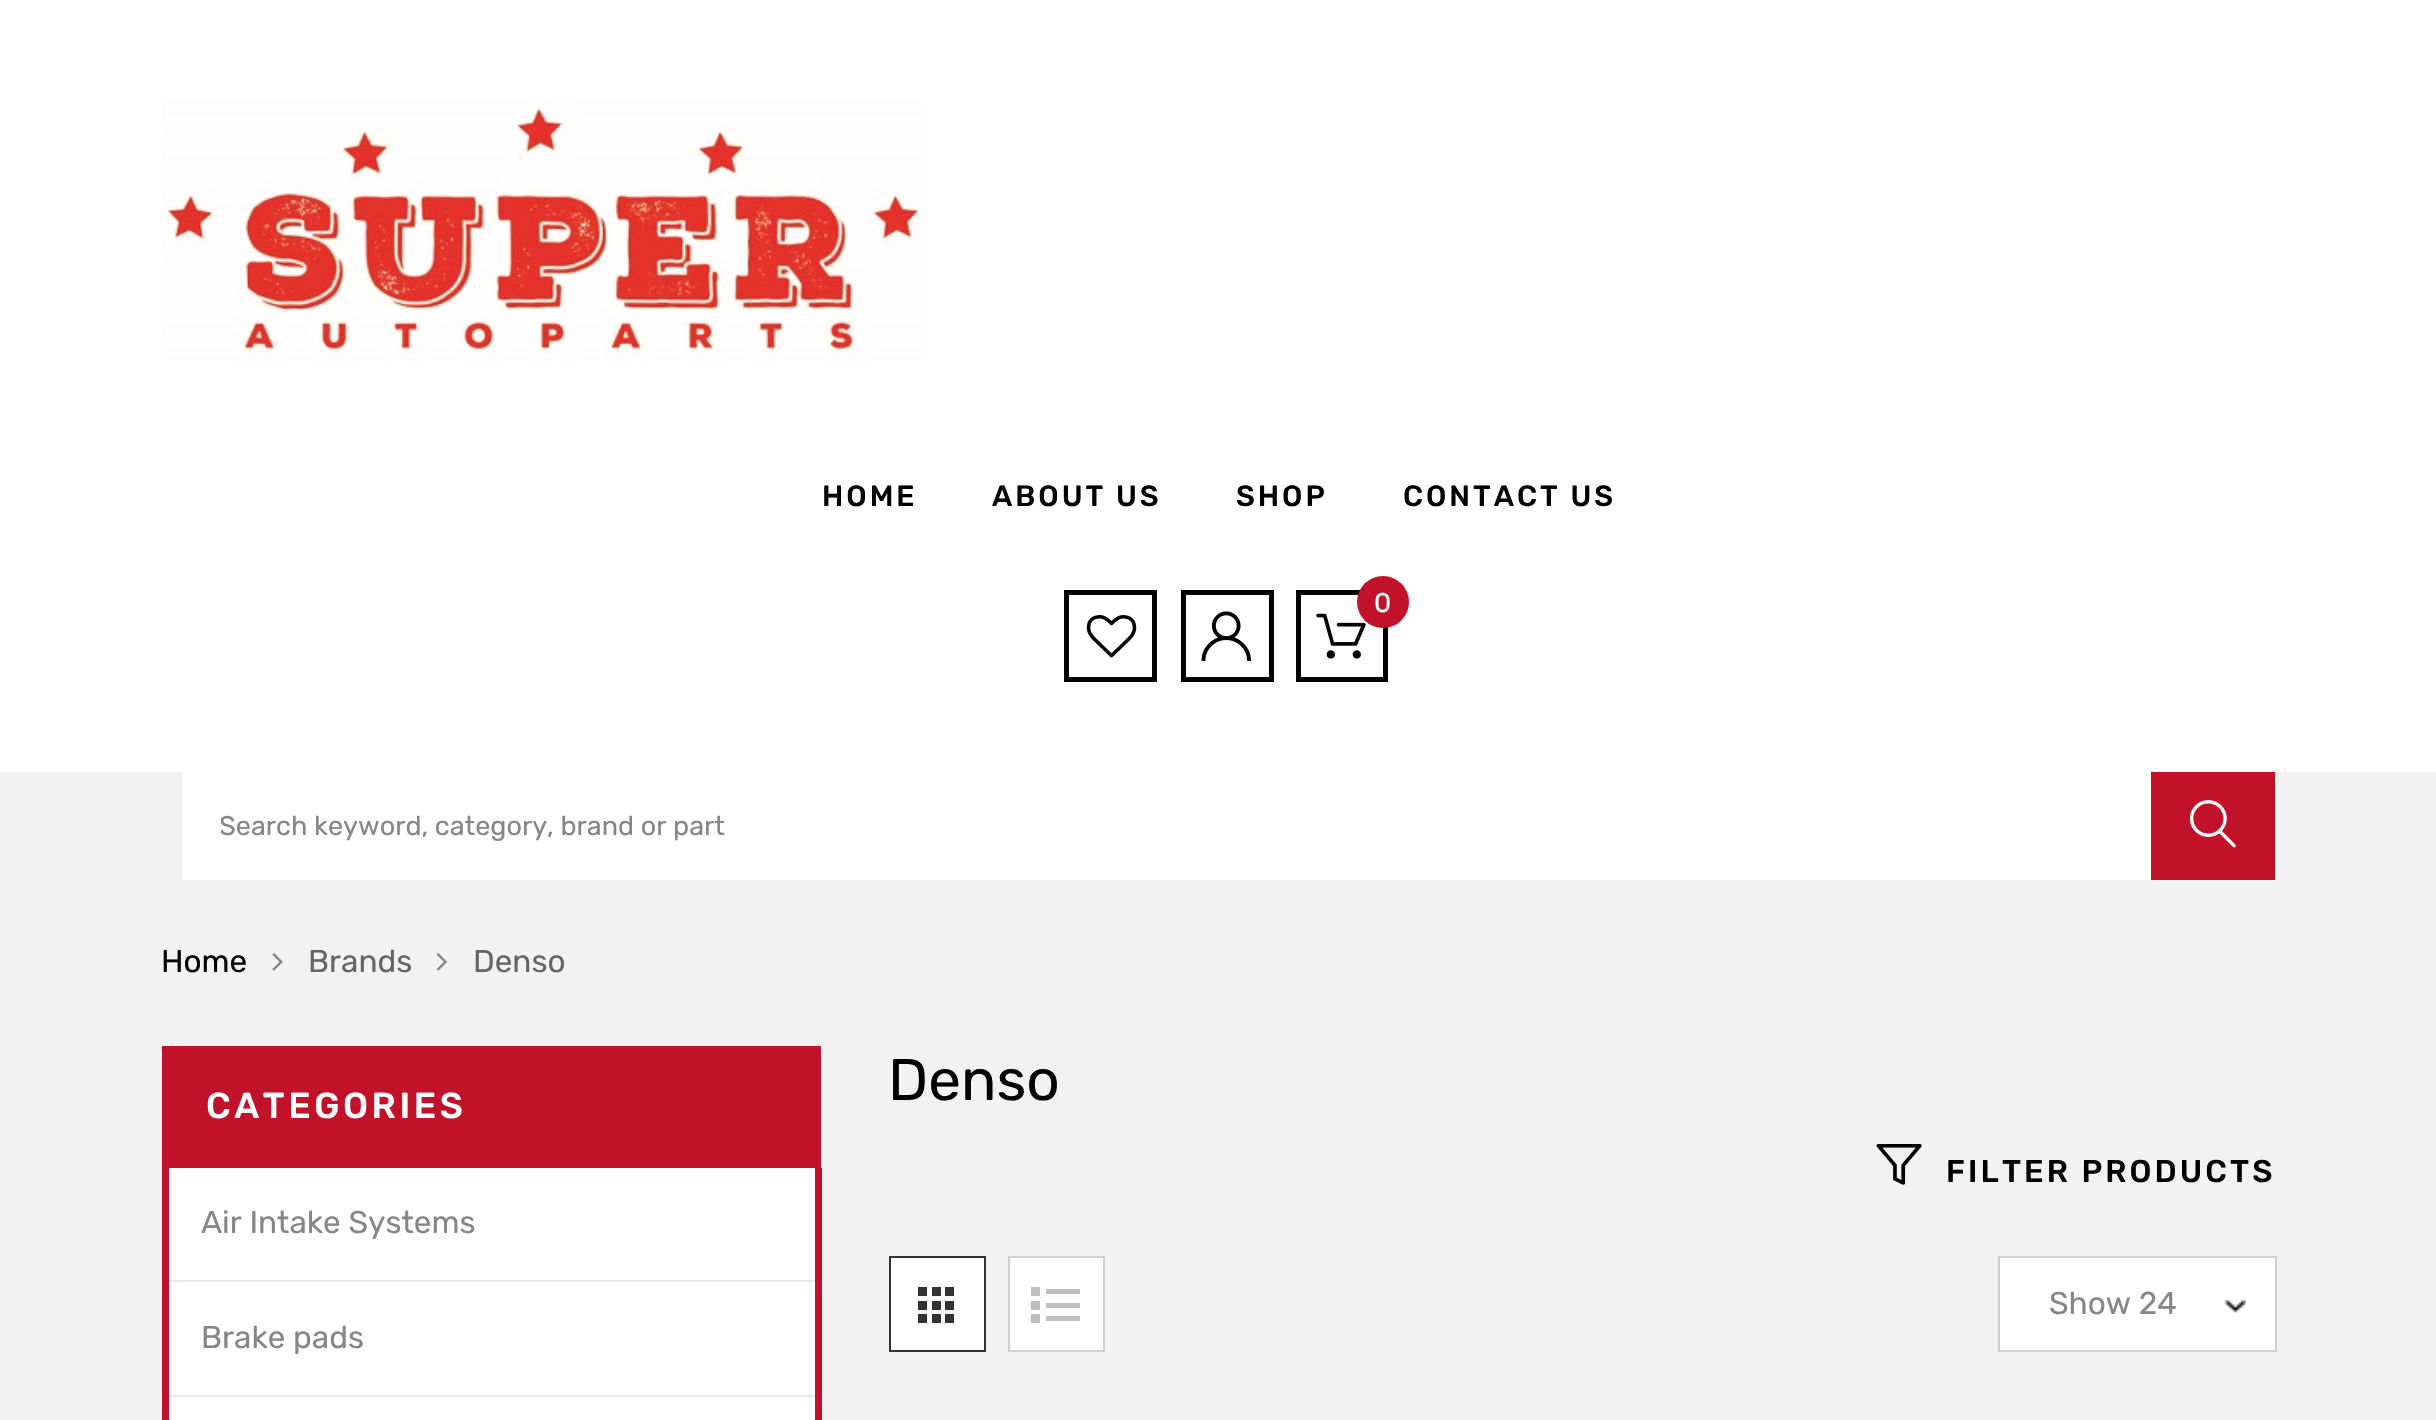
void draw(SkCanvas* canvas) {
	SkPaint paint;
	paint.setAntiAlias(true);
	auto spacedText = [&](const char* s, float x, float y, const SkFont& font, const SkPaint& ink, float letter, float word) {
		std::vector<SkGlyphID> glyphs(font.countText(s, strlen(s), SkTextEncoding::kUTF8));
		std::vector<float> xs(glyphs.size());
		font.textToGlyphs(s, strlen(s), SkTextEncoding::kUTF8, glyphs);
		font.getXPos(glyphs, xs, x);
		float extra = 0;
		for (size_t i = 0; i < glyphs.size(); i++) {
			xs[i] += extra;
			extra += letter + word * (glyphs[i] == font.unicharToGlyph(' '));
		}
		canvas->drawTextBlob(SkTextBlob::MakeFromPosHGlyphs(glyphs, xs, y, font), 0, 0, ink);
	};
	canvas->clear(0xffffffff);
	canvas->drawImageRect(SkImages::DeferredFromEncodedData(SkData::MakeFromFileName("img1.png")), SkRect::MakeXYWH(162, 99, 760, 263), SkSamplingOptions());
	SkFont f1(fontMgr->matchFamilyStyle("Rubik", SkFontStyle(500, SkFontStyle::kNormal_Width, SkFontStyle::kUpright_Slant)), 29.25);
	f1.setSubpixel(true);
	paint.setColor(0xff000000);
	spacedText("HOME", 822, 506, f1, paint, 3, 0);
	spacedText("ABOUT US", 992, 506, f1, paint, 3, 0);
	spacedText("SHOP", 1236, 506, f1, paint, 3, 0);
	spacedText("CONTACT US", 1403, 506, f1, paint, 3, 0);
	paint.setStroke(true);
	paint.setStrokeWidth(5);
	canvas->drawRect(SkRect::MakeXYWH(1066.5, 592.5, 88, 87), paint);
	canvas->drawImageRect(SkImages::DeferredFromEncodedData(SkData::MakeFromFileName("img2.png")), SkRect::MakeXYWH(1086, 615, 51, 43), SkSamplingOptions());
	canvas->drawRect(SkRect::MakeXYWH(1183.5, 592.5, 88, 87), paint);
	canvas->drawImageRect(SkImages::DeferredFromEncodedData(SkData::MakeFromFileName("img3.png")), SkRect::MakeXYWH(1201, 611, 50, 50), SkSamplingOptions());
	canvas->drawRect(SkRect::MakeXYWH(1298.5, 592.5, 87, 87), paint);
	canvas->drawImageRect(SkImages::DeferredFromEncodedData(SkData::MakeFromFileName("img4.png")), SkRect::MakeXYWH(1316, 613, 50, 46), SkSamplingOptions());
	paint.setStroke(false);
	paint.setColor(0xffc2122a);
	canvas->drawCircle(1383, 602, 26, paint);
	SkFont f2(fontMgr->matchFamilyStyle("Rubik", SkFontStyle::Normal()), 27);
	f2.setSubpixel(true);
	paint.setColor(0xffffffff);
	canvas->drawString("0", 1374, 612, f2, paint);
	paint.setColor(0xfff1f1f1);
	canvas->drawRect(SkRect::MakeXYWH(0, 772, 2436, 108), paint);
	paint.setColor(0xffffffff);
	canvas->drawRect(SkRect::MakeXYWH(182, 772, 2095, 108), paint);
	canvas->save();
	canvas->clipRect(SkRect::MakeXYWH(221, 810, 1899, 32));
	paint.setColor(0xff868686);
	canvas->drawString("Search keyword, category, brand or part", 219, 835, f2, paint);
	canvas->restore();
	paint.setColor(0xffc2122a);
	canvas->drawRect(SkRect::MakeXYWH(2151, 772, 124, 108), paint);
	canvas->drawImageRect(SkImages::DeferredFromEncodedData(SkData::MakeFromFileName("img5.png")), SkRect::MakeXYWH(2190, 800, 46, 48), SkSamplingOptions());
	paint.setColor(0xfff2f2f2);
	canvas->drawRect(SkRect::MakeXYWH(0, 880, 2436, 540), paint);
	SkFont f3(fontMgr->matchFamilyStyle("Rubik", SkFontStyle::Normal()), 31.5);
	f3.setSubpixel(true);
	paint.setColor(0xff000000);
	canvas->drawString("Home", 161, 972, f3, paint);
	canvas->drawImageRect(SkImages::DeferredFromEncodedData(SkData::MakeFromFileName("img6.png")), SkRect::MakeXYWH(272, 953, 11, 18), SkSamplingOptions());
	paint.setColor(0xff666666);
	canvas->drawString("Brands", 308, 972, f3, paint);
	canvas->drawImageRect(SkImages::DeferredFromEncodedData(SkData::MakeFromFileName("img7.png")), SkRect::MakeXYWH(436, 953, 11, 18), SkSamplingOptions());
	canvas->drawString("Denso", 473, 972, f3, paint);
	paint.setColor(0xffffffff);
	canvas->drawRect(SkRect::MakeXYWH(169, 1168, 646, 252), paint);
	paint.setColor(0xffc2122a);
	canvas->drawRect(SkRect::MakeXYWH(162, 1046, 659, 122), paint);
	SkFont f4(fontMgr->matchFamilyStyle("Rubik", SkFontStyle(500, SkFontStyle::kNormal_Width, SkFontStyle::kUpright_Slant)), 36);
	f4.setSubpixel(true);
	paint.setColor(0xffffffff);
	spacedText("CATEGORIES", 206, 1118, f4, paint, 3.6, 0);
	paint.setColor(0xffc2122a);
	canvas->drawRect(SkRect::MakeXYWH(815, 1168, 7, 252), paint);
	canvas->drawRect(SkRect::MakeXYWH(162, 1168, 7, 252), paint);
	paint.setColor(0xff868686);
	canvas->drawString("Air Intake Systems", 201, 1233, f3, paint);
	paint.setColor(0xffeaeaea);
	canvas->drawRect(SkRect::MakeXYWH(169, 1280, 646, 2), paint);
	paint.setColor(0xff868686);
	canvas->drawString("Brake pads", 201, 1348, f3, paint);
	paint.setColor(0xffeaeaea);
	canvas->drawRect(SkRect::MakeXYWH(169, 1395, 646, 2), paint);
	SkFont f5(fontMgr->matchFamilyStyle("Rubik", SkFontStyle::Normal()), 58.5);
	f5.setSubpixel(true);
	paint.setColor(0xff000000);
	canvas->drawString("Denso", 888, 1100, f5, paint);
	canvas->drawImageRect(SkImages::DeferredFromEncodedData(SkData::MakeFromFileName("img8.png")), SkRect::MakeXYWH(1876, 1144, 46, 41), SkSamplingOptions());
	SkFont f6(fontMgr->matchFamilyStyle("Rubik", SkFontStyle(500, SkFontStyle::kNormal_Width, SkFontStyle::kUpright_Slant)), 31.5);
	f6.setSubpixel(true);
	spacedText("FILTER PRODUCTS", 1946, 1182, f6, paint, 3.1, 0);
	paint.setColor(0xffffffff);
	canvas->drawRect(SkRect::MakeXYWH(890, 1257, 95, 94), paint);
	paint.setStroke(true);
	paint.setStrokeWidth(2);
	paint.setColor(0xff333333);
	canvas->drawRect(SkRect::MakeXYWH(890, 1257, 95, 94), paint);
	paint.setStroke(false);
	canvas->drawRect(SkRect::MakeXYWH(932, 1287, 9, 9), paint);
	canvas->drawRect(SkRect::MakeXYWH(918, 1287, 9, 9), paint);
	canvas->drawRect(SkRect::MakeXYWH(945, 1287, 9, 9), paint);
	canvas->drawRect(SkRect::MakeXYWH(932, 1301, 9, 9), paint);
	canvas->drawRect(SkRect::MakeXYWH(918, 1301, 9, 9), paint);
	canvas->drawRect(SkRect::MakeXYWH(945, 1301, 9, 9), paint);
	canvas->drawRect(SkRect::MakeXYWH(932, 1314, 9, 9), paint);
	canvas->drawRect(SkRect::MakeXYWH(918, 1314, 9, 9), paint);
	canvas->drawRect(SkRect::MakeXYWH(945, 1314, 9, 9), paint);
	paint.setColor(0xffffffff);
	canvas->drawRect(SkRect::MakeXYWH(1009, 1257, 95, 94), paint);
	paint.setStroke(true);
	paint.setColor(0xffcfcfcf);
	canvas->drawRect(SkRect::MakeXYWH(1009, 1257, 95, 94), paint);
	paint.setStroke(false);
	paint.setColor(0xffbfbfbf);
	canvas->drawRect(SkRect::MakeXYWH(1031, 1287, 9, 9), paint);
	canvas->drawRect(SkRect::MakeXYWH(1046, 1289, 34, 5), paint);
	canvas->drawRect(SkRect::MakeXYWH(1031, 1301, 9, 9), paint);
	canvas->drawRect(SkRect::MakeXYWH(1046, 1303, 34, 5), paint);
	canvas->drawRect(SkRect::MakeXYWH(1031, 1314, 9, 9), paint);
	canvas->drawRect(SkRect::MakeXYWH(1046, 1316, 34, 5), paint);
	paint.setColor(0xffffffff);
	canvas->drawRect(SkRect::MakeXYWH(2000, 1258, 275, 92), paint);
	canvas->drawImageRect(SkImages::DeferredFromEncodedData(SkData::MakeFromFileName("img9.png")), SkRect::MakeXYWH(2224, 1300, 23, 13), SkSamplingOptions());
	paint.setStroke(true);
	paint.setColor(0xffcfcfcf);
	canvas->drawRect(SkRect::MakeXYWH(1999, 1257, 277, 94), paint);
	paint.setStroke(false);
	paint.setColor(0xff868686);
	canvas->drawString("Show 24", 2049, 1314, f3, paint);
}
